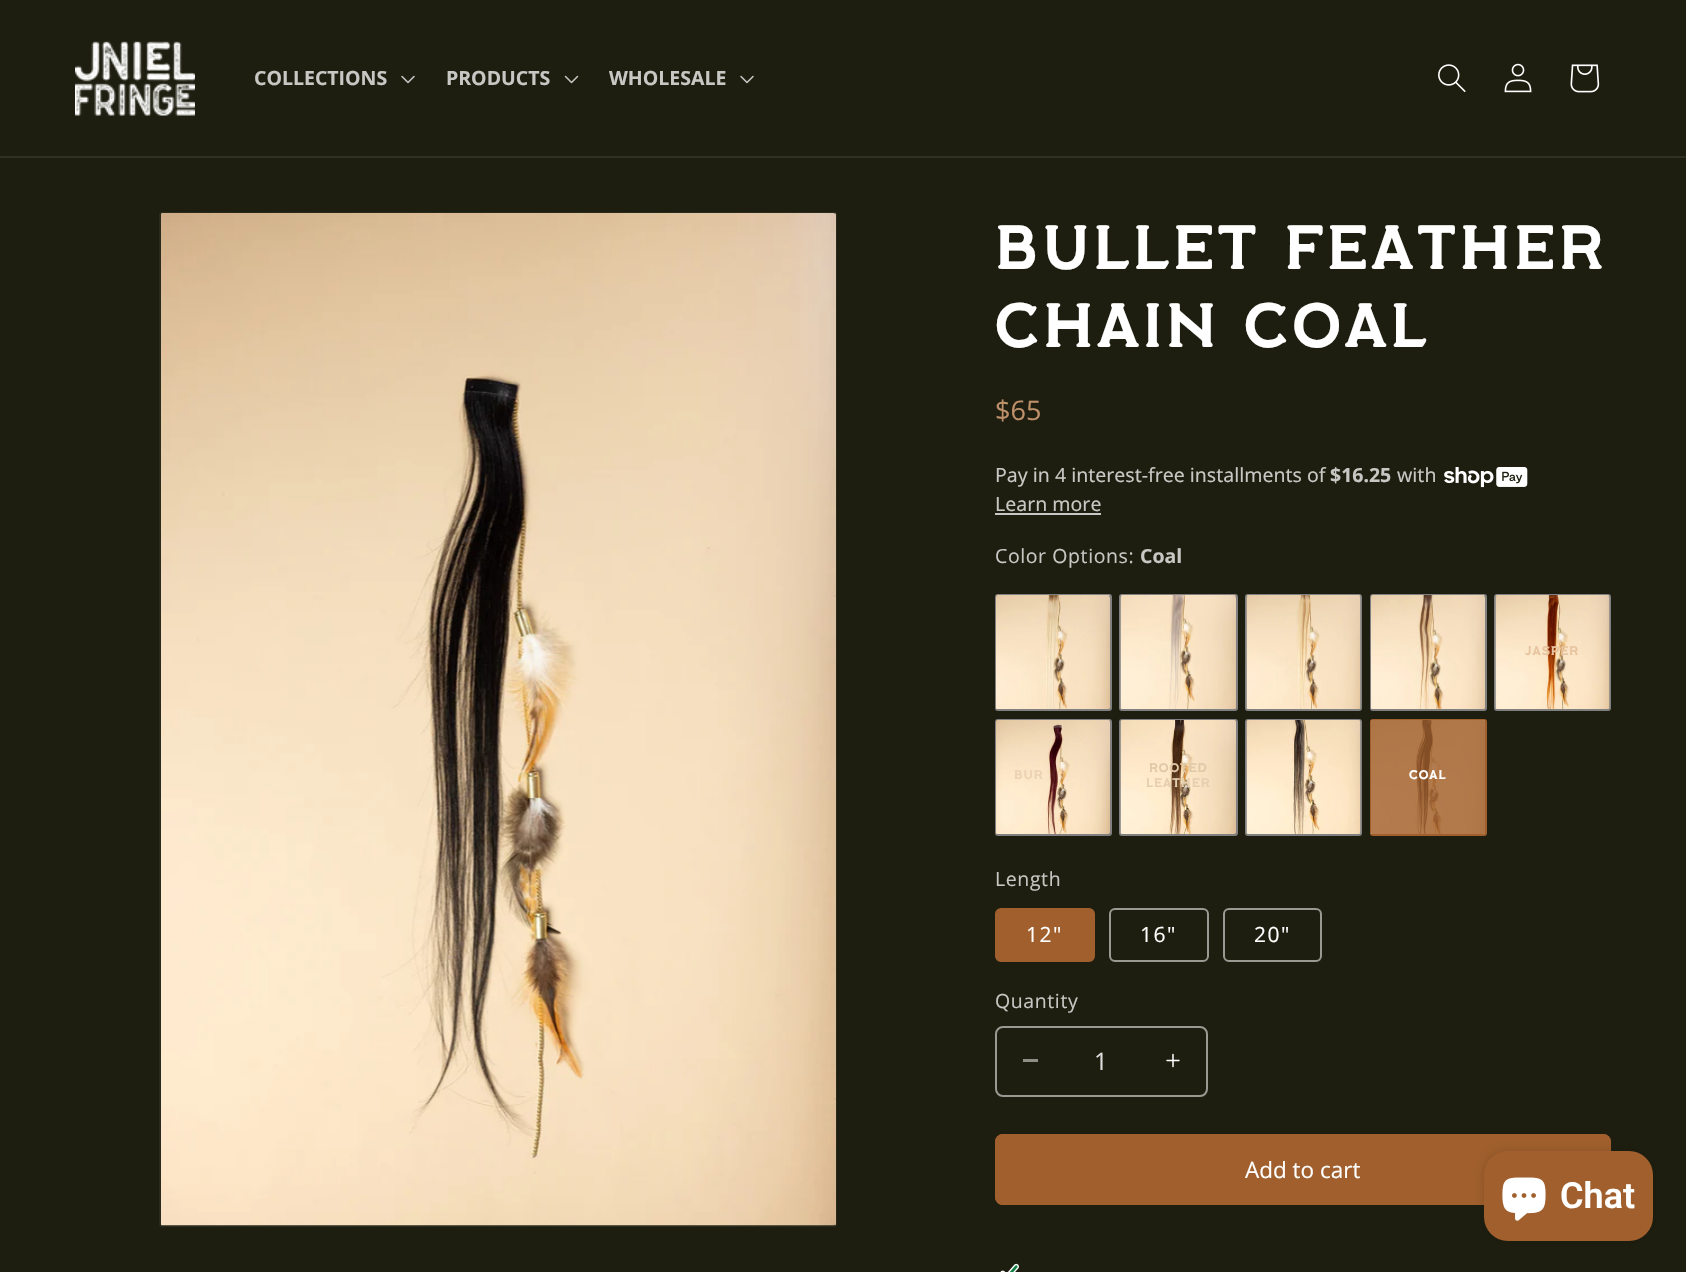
void draw(SkCanvas* canvas) {
	SkPaint paint;
	paint.setAntiAlias(true);
	auto spacedText = [&](const char* s, float x, float y, const SkFont& font, const SkPaint& ink, float letter, float word) {
		std::vector<SkGlyphID> glyphs(font.countText(s, strlen(s), SkTextEncoding::kUTF8));
		std::vector<float> xs(glyphs.size());
		font.textToGlyphs(s, strlen(s), SkTextEncoding::kUTF8, glyphs);
		font.getXPos(glyphs, xs, x);
		float extra = 0;
		for (size_t i = 0; i < glyphs.size(); i++) {
			xs[i] += extra;
			extra += letter + word * (glyphs[i] == font.unicharToGlyph(' '));
		}
		canvas->drawTextBlob(SkTextBlob::MakeFromPosHGlyphs(glyphs, xs, y, font), 0, 0, ink);
	};
	canvas->clear(0xff1e1e10);
	paint.setColor(0xff303023);
	canvas->drawRect(SkRect::MakeXYWH(0, 156, 1686, 2), paint);
	canvas->drawImageRect(SkImages::DeferredFromEncodedData(SkData::MakeFromFileName("img1.png")), SkRect::MakeXYWH(75, 41, 120, 75), SkSamplingOptions());
	SkFont f1(fontMgr->matchFamilyStyle("Open Sans", SkFontStyle::Bold()), 19.5);
	f1.setSubpixel(true);
	paint.setColor(0xffc7c7c3);
	canvas->drawString("COLLECTIONS", 254, 85, f1, paint);
	canvas->drawImageRect(SkImages::DeferredFromEncodedData(SkData::MakeFromFileName("img2.png")), SkRect::MakeXYWH(401, 75, 14, 9), SkSamplingOptions());
	canvas->drawString("PRODUCTS", 446, 85, f1, paint);
	canvas->drawImageRect(SkImages::DeferredFromEncodedData(SkData::MakeFromFileName("img3.png")), SkRect::MakeXYWH(564, 75, 15, 9), SkSamplingOptions());
	canvas->drawString("WHOLESALE", 609, 85, f1, paint);
	canvas->drawImageRect(SkImages::DeferredFromEncodedData(SkData::MakeFromFileName("img2.png")), SkRect::MakeXYWH(740, 75, 14, 9), SkSamplingOptions());
	canvas->drawImageRect(SkImages::DeferredFromEncodedData(SkData::MakeFromFileName("img4.png")), SkRect::MakeXYWH(1438, 64, 28, 28), SkSamplingOptions());
	canvas->drawImageRect(SkImages::DeferredFromEncodedData(SkData::MakeFromFileName("img5.png")), SkRect::MakeXYWH(1504, 63, 28, 30), SkSamplingOptions());
	canvas->drawImageRect(SkImages::DeferredFromEncodedData(SkData::MakeFromFileName("img6.png")), SkRect::MakeXYWH(1570, 64, 30, 29), SkSamplingOptions());
	paint.setStroke(true);
	paint.setStrokeWidth(2);
	paint.setColor(0xff29291c);
	canvas->drawRoundRect(SkRect::MakeXYWH(160, 213, 676, 1013), 2, 2, paint);
	canvas->drawImageRect(SkImages::DeferredFromEncodedData(SkData::MakeFromFileName("img7.png")), SkRect::MakeXYWH(161, 213, 675, 1013), SkSamplingOptions());
	SkFont f2(fontMgr->matchFamilyStyle("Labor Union", SkFontStyle::Bold()), 60);
	f2.setSubpixel(true);
	paint.setStroke(false);
	paint.setColor(0xffffffff);
	spacedText("Bullet Feather", 995, 269, f2, paint, 6, 0);
	spacedText("Chain COAL", 995, 347, f2, paint, 6, 0);
	SkFont f3(fontMgr->matchFamilyStyle("Open Sans", SkFontStyle::Normal()), 27);
	f3.setSubpixel(true);
	paint.setColor(0xffbd906a);
	canvas->drawString("$65", 995, 420, f3, paint);
	SkFont f4(fontMgr->matchFamilyStyle("Noto Sans", SkFontStyle::Normal()), 19.5);
	f4.setSubpixel(true);
	paint.setColor(0xffc7c7c3);
	canvas->drawString("Pay in 4 interest-free installments of", 995, 482, f4, paint);
	SkFont f5(fontMgr->matchFamilyStyle("Noto Sans", SkFontStyle::Bold()), 19.5);
	f5.setSubpixel(true);
	canvas->drawString("$16.25", 1330, 482, f5, paint);
	canvas->drawString("with", 1397, 482, f4, paint);
	canvas->drawImageRect(SkImages::DeferredFromEncodedData(SkData::MakeFromFileName("img8.png")), SkRect::MakeXYWH(1444, 467, 84, 21), SkSamplingOptions());
	canvas->drawString("Learn more", 995, 511, f4, paint);
	canvas->drawRect(SkRect::MakeXYWH(995, 513, 106, 2), paint);
	SkFont f6(fontMgr->matchFamilyStyle("Open Sans", SkFontStyle::Normal()), 19.5);
	f6.setSubpixel(true);
	spacedText("Color Options:", 995, 563, f6, paint, 0.6, 0);
	canvas->drawString("Coal", 1140, 563, f1, paint);
	paint.setStroke(true);
	paint.setColor(0xff808080);
	canvas->drawRoundRect(SkRect::MakeXYWH(996, 595, 115, 115), 2, 2, paint);
	canvas->drawImageRect(SkImages::DeferredFromEncodedData(SkData::MakeFromFileName("img9.png")), SkRect::MakeXYWH(996, 595, 114, 114), SkSamplingOptions());
	canvas->drawRoundRect(SkRect::MakeXYWH(1120, 595, 117, 115), 2, 2, paint);
	canvas->drawImageRect(SkImages::DeferredFromEncodedData(SkData::MakeFromFileName("img10.png")), SkRect::MakeXYWH(1120, 595, 116, 114), SkSamplingOptions());
	canvas->drawRoundRect(SkRect::MakeXYWH(1246, 595, 115, 115), 2, 2, paint);
	canvas->drawImageRect(SkImages::DeferredFromEncodedData(SkData::MakeFromFileName("img11.png")), SkRect::MakeXYWH(1246, 595, 115, 114), SkSamplingOptions());
	canvas->drawRoundRect(SkRect::MakeXYWH(1371, 595, 115, 115), 2, 2, paint);
	canvas->drawImageRect(SkImages::DeferredFromEncodedData(SkData::MakeFromFileName("img12.png")), SkRect::MakeXYWH(1371, 595, 114, 114), SkSamplingOptions());
	canvas->drawRoundRect(SkRect::MakeXYWH(1495, 595, 115, 115), 2, 2, paint);
	canvas->drawImageRect(SkImages::DeferredFromEncodedData(SkData::MakeFromFileName("img13.png")), SkRect::MakeXYWH(1495, 595, 115, 114), SkSamplingOptions());
	SkFont f7(fontMgr->matchFamilyStyle("Labor Union", SkFontStyle::Bold()), 12);
	f7.setSubpixel(true);
	paint.setStroke(false);
	paint.setColor(0xffe7c49f);
	spacedText("Jasper", 1525, 655, f7, paint, 1.25, 0);
	paint.setStroke(true);
	paint.setColor(0xff808080);
	canvas->drawRoundRect(SkRect::MakeXYWH(996, 720, 115, 115), 2, 2, paint);
	canvas->drawImageRect(SkImages::DeferredFromEncodedData(SkData::MakeFromFileName("img14.png")), SkRect::MakeXYWH(996, 720, 114, 114), SkSamplingOptions());
	paint.setStroke(false);
	paint.setColor(0xffecd2b3);
	spacedText("Bur", 1014, 779, f7, paint, 1.25, 0);
	paint.setStroke(true);
	paint.setColor(0xff808080);
	canvas->drawRoundRect(SkRect::MakeXYWH(1120, 720, 117, 115), 2, 2, paint);
	canvas->drawImageRect(SkImages::DeferredFromEncodedData(SkData::MakeFromFileName("img15.png")), SkRect::MakeXYWH(1120, 720, 116, 114), SkSamplingOptions());
	paint.setStroke(false);
	paint.setColor(0xffe1c8a7);
	spacedText("Rooted", 1149, 772, f7, paint, 1.25, 0);
	paint.setColor(0xffe6cfaf);
	spacedText("Leather", 1146, 787, f7, paint, 1.25, 0);
	paint.setStroke(true);
	paint.setColor(0xff808080);
	canvas->drawRoundRect(SkRect::MakeXYWH(1246, 720, 115, 115), 2, 2, paint);
	canvas->drawImageRect(SkImages::DeferredFromEncodedData(SkData::MakeFromFileName("img16.png")), SkRect::MakeXYWH(1246, 720, 115, 114), SkSamplingOptions());
	paint.setStroke(false);
	paint.setColor(0xffa05f2d);
	canvas->drawRoundRect(SkRect::MakeXYWH(1371, 720, 115, 115), 2, 2, paint);
	paint.setStroke(true);
	canvas->drawRoundRect(SkRect::MakeXYWH(1371, 720, 115, 115), 2, 2, paint);
	canvas->drawImageRect(SkImages::DeferredFromEncodedData(SkData::MakeFromFileName("img17.png")), SkRect::MakeXYWH(1371, 720, 114, 114), SkSamplingOptions());
	paint.setStroke(false);
	paint.setColor(0xcca05f2d);
	canvas->drawRoundRect(SkRect::MakeXYWH(1371, 720, 114, 114), 1.5, 1.5, paint);
	paint.setColor(0xffffffff);
	spacedText("Coal", 1409, 779, f7, paint, 1.25, 0);
	paint.setColor(0xffc7c7c3);
	spacedText("Length", 995, 886, f6, paint, 0.6, 0);
	paint.setColor(0xffa05f2d);
	canvas->drawRoundRect(SkRect::MakeXYWH(996, 909, 98, 52), 5, 5, paint);
	paint.setStroke(true);
	canvas->drawRoundRect(SkRect::MakeXYWH(996, 909, 98, 52), 5, 5, paint);
	SkFont f8(fontMgr->matchFamilyStyle("Open Sans", SkFontStyle::Normal()), 21);
	f8.setSubpixel(true);
	paint.setStroke(false);
	paint.setColor(0xffffffff);
	spacedText("12\"", 1026, 942, f8, paint, 1.5, 0);
	paint.setStroke(true);
	paint.setColor(0xff9a9a93);
	canvas->drawRoundRect(SkRect::MakeXYWH(1110, 909, 98, 52), 5, 5, paint);
	paint.setStroke(false);
	paint.setColor(0xffffffff);
	spacedText("16\"", 1140, 942, f8, paint, 1.5, 0);
	paint.setStroke(true);
	paint.setColor(0xff9a9a93);
	canvas->drawRoundRect(SkRect::MakeXYWH(1224, 909, 97, 52), 5, 5, paint);
	paint.setStroke(false);
	paint.setColor(0xffffffff);
	spacedText("20\"", 1254, 942, f8, paint, 1.5, 0);
	paint.setColor(0xffc7c7c3);
	spacedText("Quantity", 995, 1008, f6, paint, 0.6, 0);
	paint.setColor(0xff8f8f88);
	canvas->drawRect(SkRect::MakeXYWH(1023, 1059, 15, 3), paint);
	canvas->drawImageRect(SkImages::DeferredFromEncodedData(SkData::MakeFromFileName("img18.png")), SkRect::MakeXYWH(1166, 1053, 14, 15), SkSamplingOptions());
	paint.setStroke(true);
	paint.setColor(0xff9a9a93);
	canvas->drawRoundRect(SkRect::MakeXYWH(996, 1027, 211, 69), 7, 7, paint);
	SkFont f9(fontMgr->matchFamilyStyle("Open Sans", SkFontStyle::Normal()), 24);
	f9.setSubpixel(true);
	paint.setStroke(false);
	paint.setColor(0xffdddddb);
	canvas->drawString("1", 1094, 1070, f9, paint);
	paint.setColor(0xffa05f2d);
	canvas->drawRoundRect(SkRect::MakeXYWH(995, 1134, 616, 71), 8, 8, paint);
	paint.setStroke(true);
	canvas->drawRoundRect(SkRect::MakeXYWH(996, 1135, 614, 69), 7, 7, paint);
	SkFont f10(fontMgr->matchFamilyStyle("Open Sans", SkFontStyle::Normal()), 22.5);
	f10.setSubpixel(true);
	paint.setStroke(false);
	paint.setColor(0xffffffff);
	canvas->drawString("Add to cart", 1245, 1178, f10, paint);
	canvas->drawImageRect(SkImages::DeferredFromEncodedData(SkData::MakeFromFileName("img19.png")), SkRect::MakeXYWH(1000, 1263, 19, 9), SkSamplingOptions());
	paint.setColor(0x26000000);
	paint.setMaskFilter(SkMaskFilter::MakeBlur(kNormal_SkBlurStyle, 4));
	canvas->drawRoundRect(SkRect::MakeXYWH(1484, 1151, 169, 90), 24, 24, paint);
	paint.setMaskFilter(nullptr);
	paint.setColor(0xffa05f2d);
	canvas->drawRoundRect(SkRect::MakeXYWH(1484, 1151, 169, 90), 24, 24, paint);
	canvas->drawImageRect(SkImages::DeferredFromEncodedData(SkData::MakeFromFileName("img20.png")), SkRect::MakeXYWH(1502, 1177, 44, 44), SkSamplingOptions());
	SkFont f11(fontMgr->matchFamilyStyle("Roboto", SkFontStyle(600, SkFontStyle::kNormal_Width, SkFontStyle::kUpright_Slant)), 36);
	f11.setSubpixel(true);
	paint.setColor(0xffffffff);
	canvas->drawString("Chat", 1560, 1208, f11, paint);
}
